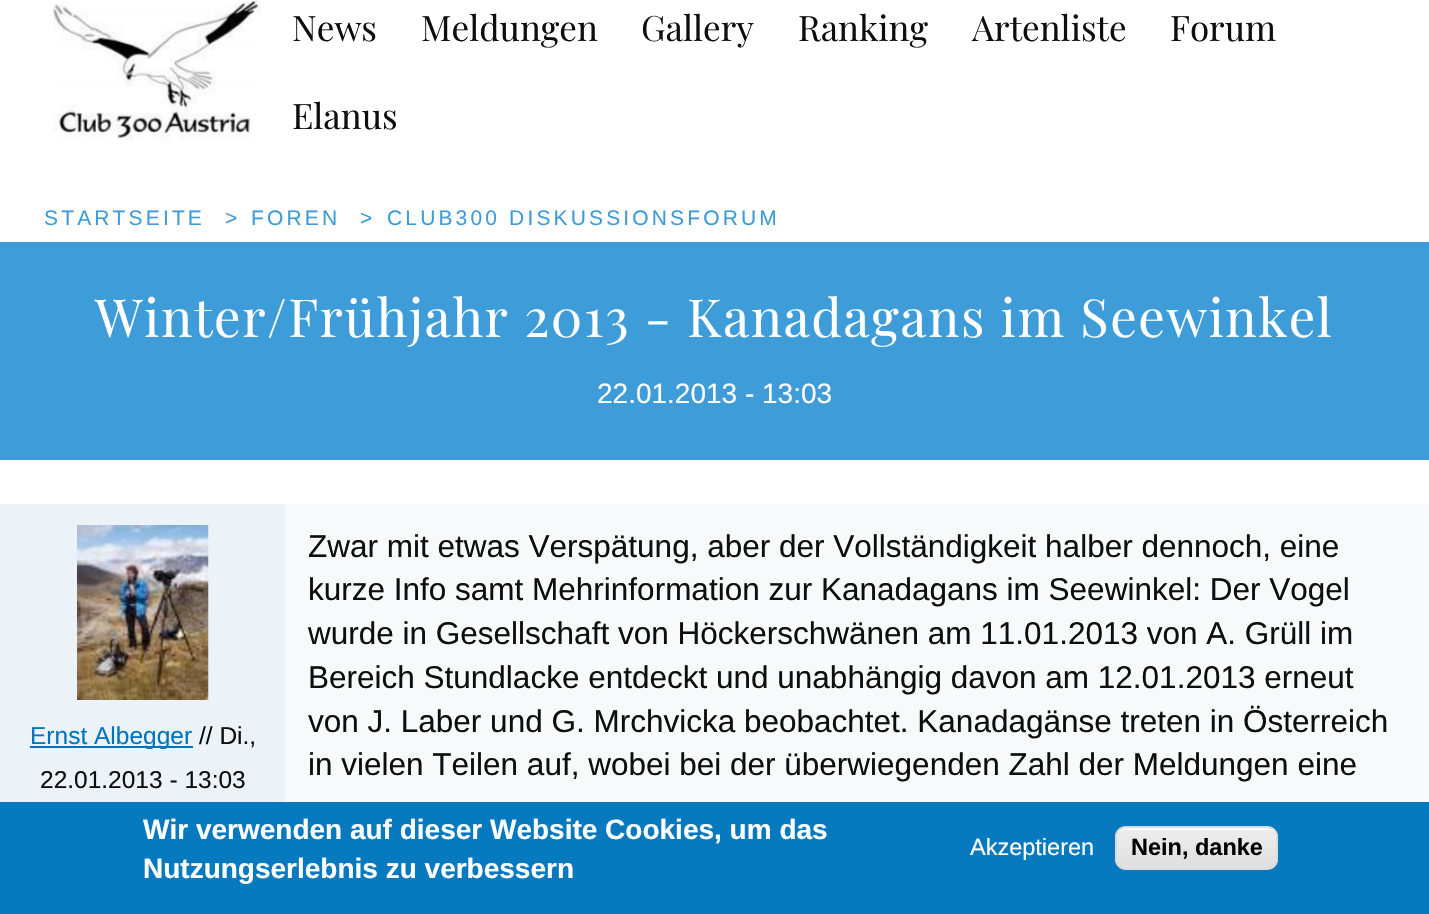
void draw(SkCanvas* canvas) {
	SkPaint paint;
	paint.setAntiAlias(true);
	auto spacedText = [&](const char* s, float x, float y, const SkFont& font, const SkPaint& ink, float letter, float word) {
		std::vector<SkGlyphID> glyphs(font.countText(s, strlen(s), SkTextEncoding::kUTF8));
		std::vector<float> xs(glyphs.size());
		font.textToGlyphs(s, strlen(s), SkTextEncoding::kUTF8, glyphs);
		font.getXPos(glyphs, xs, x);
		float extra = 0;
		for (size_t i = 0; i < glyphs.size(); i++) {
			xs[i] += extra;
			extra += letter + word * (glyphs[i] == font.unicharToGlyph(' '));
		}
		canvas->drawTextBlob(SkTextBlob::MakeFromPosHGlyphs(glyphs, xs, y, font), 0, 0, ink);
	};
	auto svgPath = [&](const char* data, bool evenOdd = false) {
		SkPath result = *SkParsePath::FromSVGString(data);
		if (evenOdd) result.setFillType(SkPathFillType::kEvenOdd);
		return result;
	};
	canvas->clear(0xffffffff);
	canvas->drawImageRect(SkImages::DeferredFromEncodedData(SkData::MakeFromFileName("img1.png")), SkRect::MakeXYWH(53, 0, 208, 141), SkSamplingOptions());
	SkFont f1(fontMgr->matchFamilyStyle("Playfair Display", SkFontStyle::Normal()), 35);
	f1.setSubpixel(true);
	paint.setColor(0xff0e0e0f);
	canvas->drawString("News", 292, 41, f1, paint);
	canvas->drawString("Meldungen", 421, 41, f1, paint);
	canvas->drawString("Gallery", 641, 41, f1, paint);
	canvas->drawString("Ranking", 798, 41, f1, paint);
	canvas->drawString("Artenliste", 972, 41, f1, paint);
	canvas->drawString("Forum", 1170, 41, f1, paint);
	canvas->drawString("Elanus", 292, 129, f1, paint);
	SkFont f2(fontMgr->matchFamilyStyle("Liberation Sans", SkFontStyle::Normal()), 21);
	f2.setSubpixel(true);
	paint.setColor(0xff3e9cd8);
	spacedText("STARTSEITE", 44, 225, f2, paint, 3.15, 0);
	spacedText(">", 225, 225, f2, paint, 3.15, 0);
	spacedText("FOREN", 251, 225, f2, paint, 3.15, 0);
	spacedText(">", 360, 225, f2, paint, 3.15, 0);
	spacedText("CLUB300 DISKUSSIONSFORUM", 387, 225, f2, paint, 3.15, 0);
	canvas->drawRect(SkRect::MakeXYWH(0, 242, 1429, 218), paint);
	SkFont f3(fontMgr->matchFamilyStyle("Playfair Display", SkFontStyle::Normal()), 52.5);
	f3.setSubpixel(true);
	paint.setColor(0xffffffff);
	spacedText("Winter/Frühjahr 2013 - Kanadagans im Seewinkel", 95, 337, f3, paint, 1.55, 0);
	SkFont f4(fontMgr->matchFamilyStyle("Liberation Sans", SkFontStyle::Normal()), 28);
	f4.setSubpixel(true);
	canvas->drawString("22.01.2013 - 13:03", 597, 403, f4, paint);
	paint.setColor(0xffebf2f8);
	canvas->drawRect(SkRect::MakeXYWH(0, 504, 285, 298), paint);
	canvas->drawImageRect(SkImages::DeferredFromEncodedData(SkData::MakeFromFileName("img2.png")), SkRect::MakeXYWH(77, 525, 132, 175), SkSamplingOptions());
	paint.setColor(0xff0074bd);
	canvas->drawRect(SkRect::MakeXYWH(30, 746, 163, 2), paint);
	SkFont f5(fontMgr->matchFamilyStyle("Liberation Sans", SkFontStyle::Normal()), 24.5);
	f5.setSubpixel(true);
	canvas->drawString("Ernst Albegger", 30, 744, f5, paint);
	paint.setColor(0xff0e0e0f);
	canvas->drawString("// Di.,", 199, 744, f5, paint);
	canvas->drawString("22.01.2013 - 13:03", 40, 788, f5, paint);
	paint.setColor(0xfff7f9fb);
	canvas->drawRect(SkRect::MakeXYWH(285, 504, 1144, 298), paint);
	SkFont f6(fontMgr->matchFamilyStyle("Liberation Sans", SkFontStyle::Normal()), 31.5);
	f6.setSubpixel(true);
	paint.setColor(0xff0e0e0f);
	canvas->drawString("Zwar mit etwas Verspätung, aber der Vollständigkeit halber dennoch, eine", 308, 557, f6, paint);
	canvas->drawString("kurze Info samt Mehrinformation zur Kanadagans im Seewinkel: Der Vogel", 308, 600, f6, paint);
	canvas->drawString("wurde in Gesellschaft von Höckerschwänen am 11.01.2013 von A. Grüll im", 308, 644, f6, paint);
	canvas->drawString("Bereich Stundlacke entdeckt und unabhängig davon am 12.01.2013 erneut", 308, 688, f6, paint);
	canvas->drawString("von J. Laber und G. Mrchvicka beobachtet. Kanadagänse treten in Österreich", 308, 732, f6, paint);
	canvas->drawString("in vielen Teilen auf, wobei bei der überwiegenden Zahl der Meldungen eine", 308, 775, f6, paint);
	paint.setColor(0xff0779bf);
	canvas->drawRect(SkRect::MakeXYWH(0, 802, 1429, 112), paint);
	SkFont f7(fontMgr->matchFamilyStyle("Liberation Sans", SkFontStyle::Bold()), 28);
	f7.setSubpixel(true);
	paint.setColor(0xffffffff);
	canvas->drawString("Wir verwenden auf dieser Website Cookies, um das", 143, 839, f7, paint);
	canvas->drawString("Nutzungserlebnis zu verbessern", 143, 878, f7, paint);
	SkFont f8(fontMgr->matchFamilyStyle("Liberation Sans", SkFontStyle::Normal()), 23.5);
	f8.setSubpixel(true);
	canvas->drawString("Akzeptieren", 970, 855, f8, paint);
	canvas->save();
	canvas->clipPath(svgPath("M1126 826H1267C1273 826 1278 831 1278 837V859C1278 865 1273 870 1267 870H1126C1120 870 1115 865 1115 859V837C1115 831 1120 826 1126 826Z"), true);
	{
		const SkColor colors[] = {0xffededed, 0xffdfdfdf};
		const float stops[] = {0.05, 1};
		const SkPoint ends[] = {{1196, 828}, {1196, 868}};
		paint.setShader(SkGradientShader::MakeLinear(ends, colors, stops, 2, SkTileMode::kClamp));
		paint.setAlpha(255);
	}
	canvas->drawRect(SkRect::MakeXYWH(1115, 828, 163, 40), paint);
	canvas->restore();
	paint.setShader(nullptr);
	paint.setColor(0xffffffff);
	canvas->drawPath(svgPath("M1125 830H1267C1272 830 1276 833 1276 838V837C1276 832 1272 828 1267 828H1126C1123 828 1120 830 1118 833C1120 831 1122 830 1125 830Z"), paint);
	paint.setStroke(true);
	paint.setStrokeWidth(2);
	paint.setColor(0xffdcdcdc);
	canvas->drawRoundRect(SkRect::MakeXYWH(1116, 827, 161, 42), 10, 10, paint);
	SkFont f9(fontMgr->matchFamilyStyle("Liberation Sans", SkFontStyle::Bold()), 23.5);
	f9.setSubpixel(true);
	paint.setStroke(false);
	paint.setColor(0xff000000);
	canvas->drawString("Nein, danke", 1131, 855, f9, paint);
}
